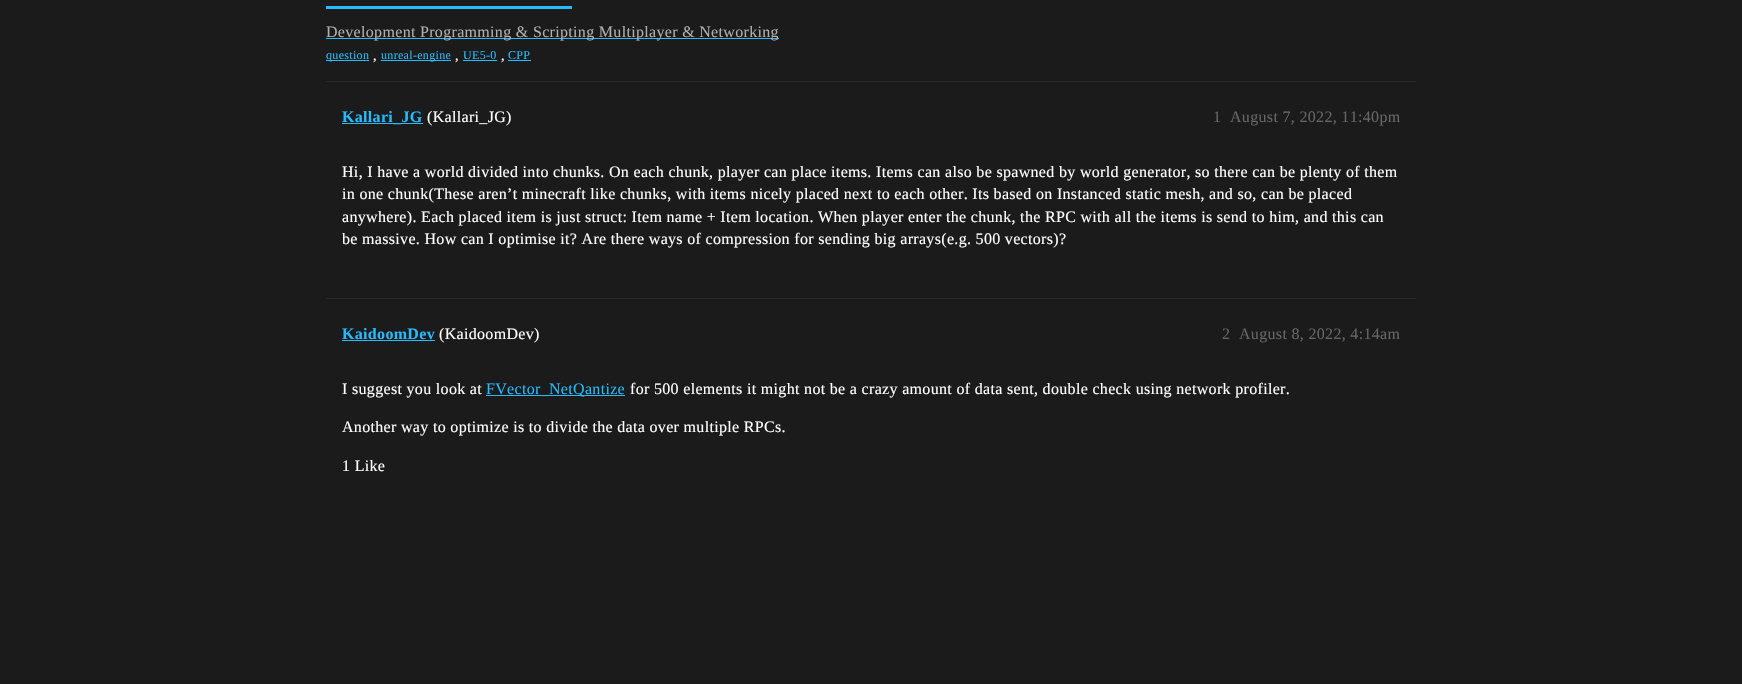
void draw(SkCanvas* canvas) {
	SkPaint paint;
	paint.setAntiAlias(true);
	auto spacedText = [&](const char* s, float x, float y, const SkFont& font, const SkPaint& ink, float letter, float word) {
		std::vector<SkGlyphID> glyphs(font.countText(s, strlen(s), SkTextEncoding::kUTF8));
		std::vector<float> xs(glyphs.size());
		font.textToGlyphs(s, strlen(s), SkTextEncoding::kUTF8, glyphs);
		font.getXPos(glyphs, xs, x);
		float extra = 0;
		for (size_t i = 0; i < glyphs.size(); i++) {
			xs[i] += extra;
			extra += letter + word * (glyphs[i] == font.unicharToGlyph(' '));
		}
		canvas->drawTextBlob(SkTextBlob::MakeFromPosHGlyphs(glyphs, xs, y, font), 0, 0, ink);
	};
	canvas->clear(0xff1b1b1b);
	paint.setColor(0xff26bbff);
	canvas->drawRect(SkRect::MakeXYWH(326, 6, 246, 3), paint);
	canvas->drawRect(SkRect::MakeXYWH(326, 38, 453, 1), paint);
	SkFont f1(fontMgr->matchFamilyStyle("Liberation Serif", SkFontStyle::Normal()), 16);
	f1.setSubpixel(true);
	paint.setColor(0xffafafb0);
	spacedText("Development", 326, 37, f1, paint, 0.32, 0);
	spacedText("Programming & Scripting Multiplayer & Networking", 420, 37, f1, paint, 0.32, 0);
	paint.setColor(0xff26bbff);
	canvas->drawRect(SkRect::MakeXYWH(326, 60, 43, 1), paint);
	SkFont f2(fontMgr->matchFamilyStyle("Liberation Serif", SkFontStyle::Normal()), 12);
	f2.setSubpixel(true);
	spacedText("question", 326, 59, f2, paint, 0.32, 0);
	canvas->drawRect(SkRect::MakeXYWH(381, 60, 70, 1), paint);
	spacedText("unreal-engine", 381, 59, f2, paint, 0.32, 0);
	spacedText("UE5-0", 463, 59, f2, paint, 0.32, 0);
	canvas->drawRect(SkRect::MakeXYWH(463, 60, 34, 1), paint);
	spacedText("CPP", 508, 59, f2, paint, 0.32, 0);
	canvas->drawRect(SkRect::MakeXYWH(508, 60, 23, 1), paint);
	SkFont f3(fontMgr->matchFamilyStyle("Liberation Serif", SkFontStyle::Normal()), 14);
	f3.setSubpixel(true);
	paint.setColor(0xffffffff);
	spacedText(",", 373, 60, f3, paint, 0.32, 0);
	spacedText(",", 455, 60, f3, paint, 0.32, 0);
	spacedText(",", 501, 60, f3, paint, 0.32, 0);
	paint.setColor(0xff28282c);
	canvas->drawRect(SkRect::MakeXYWH(326, 81, 1090, 1), paint);
	paint.setColor(0xff26bbff);
	canvas->drawRect(SkRect::MakeXYWH(342, 123, 81, 1), paint);
	SkFont f4(fontMgr->matchFamilyStyle("Liberation Serif", SkFontStyle::Bold()), 16);
	f4.setSubpixel(true);
	spacedText("Kallari_JG", 342, 122, f4, paint, 0.32, 0);
	paint.setColor(0xffffffff);
	spacedText("(Kallari_JG)", 427, 122, f1, paint, 0.32, 0);
	paint.setColor(0xff666666);
	spacedText("1", 1213, 122, f1, paint, 0.32, 0);
	spacedText("August 7, 2022, 11:40pm", 1230, 122, f1, paint, 0.32, 0);
	paint.setColor(0xffffffff);
	spacedText("Hi, I have a world divided into chunks. On each chunk, player can place items. Items can also be spawned by world generator, so there can be plenty of them", 342, 177, f1, paint, 0.32, 0);
	spacedText("in one chunk(These aren’t minecraft like chunks, with items nicely placed next to each other. Its based on Instanced static mesh, and so, can be placed", 342, 199, f1, paint, 0.32, 0);
	spacedText("anywhere). Each placed item is just struct: Item name + Item location. When player enter the chunk, the RPC with all the items is send to him, and this can", 342, 222, f1, paint, 0.32, 0);
	spacedText("be massive. How can I optimise it? Are there ways of compression for sending big arrays(e.g. 500 vectors)?", 342, 244, f1, paint, 0.32, 0);
	paint.setColor(0xff28282c);
	canvas->drawRect(SkRect::MakeXYWH(326, 298, 1090, 1), paint);
	paint.setColor(0xff26bbff);
	spacedText("KaidoomDev", 342, 339, f4, paint, 0.32, 0);
	canvas->drawRect(SkRect::MakeXYWH(342, 340, 93, 1), paint);
	paint.setColor(0xffffffff);
	spacedText("(KaidoomDev)", 439, 339, f1, paint, 0.32, 0);
	paint.setColor(0xff666666);
	spacedText("2", 1222, 339, f1, paint, 0.32, 0);
	spacedText("August 8, 2022, 4:14am", 1239, 339, f1, paint, 0.32, 0);
	paint.setColor(0xffffffff);
	spacedText("I suggest you look at", 342, 394, f1, paint, 0.32, 0);
	paint.setColor(0xff26bbff);
	canvas->drawRect(SkRect::MakeXYWH(486, 395, 139, 1), paint);
	spacedText("FVector_NetQantize", 486, 394, f1, paint, 0.32, 0);
	paint.setColor(0xffffffff);
	spacedText("for 500 elements it might not be a crazy amount of data sent, double check using network profiler.", 630, 394, f1, paint, 0.32, 0);
	spacedText("Another way to optimize is to divide the data over multiple RPCs.", 342, 432, f1, paint, 0.32, 0);
	spacedText("1 Like", 342, 471, f1, paint, 0.32, 0);
}
